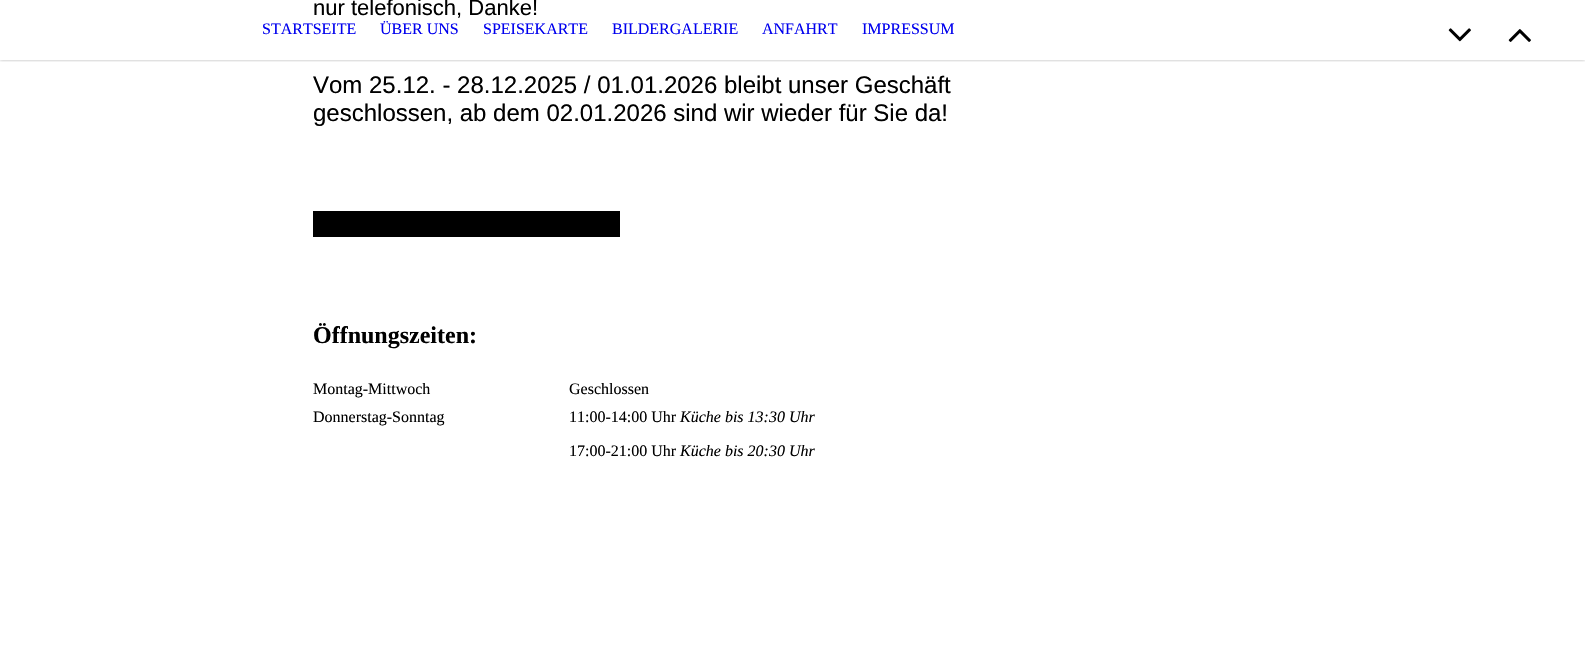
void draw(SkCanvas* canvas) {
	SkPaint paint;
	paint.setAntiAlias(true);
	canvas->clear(0xffffffff);
	SkFont f1(fontMgr->matchFamilyStyle("Liberation Sans", SkFontStyle::Normal()), 22);
	f1.setSubpixel(true);
	paint.setColor(0xff000000);
	canvas->drawString("nur telefonisch, Danke!", 313, 15, f1, paint);
	SkFont f2(fontMgr->matchFamilyStyle("Liberation Sans", SkFontStyle::Normal()), 24);
	f2.setSubpixel(true);
	canvas->drawString("Vom 25.12. - 28.12.2025 / 01.01.2026 bleibt unser Geschäft", 313, 93, f2, paint);
	canvas->drawString("geschlossen, ab dem 02.01.2026 sind wir wieder für Sie da!", 313, 121, f2, paint);
	canvas->drawRect(SkRect::MakeXYWH(313, 211, 307, 26), paint);
	SkFont f3(fontMgr->matchFamilyStyle("Liberation Serif", SkFontStyle::Bold()), 24);
	f3.setSubpixel(true);
	canvas->drawString("Öffnungszeiten:", 313, 343, f3, paint);
	SkFont f4(fontMgr->matchFamilyStyle("Liberation Serif", SkFontStyle::Normal()), 16);
	f4.setSubpixel(true);
	canvas->drawString("Montag-Mittwoch", 313, 394, f4, paint);
	canvas->drawString("Geschlossen", 569, 394, f4, paint);
	canvas->drawString("Donnerstag-Sonntag", 313, 422, f4, paint);
	canvas->drawString("11:00-14:00 Uhr", 569, 422, f4, paint);
	SkFont f5(fontMgr->matchFamilyStyle("Liberation Serif", SkFontStyle::Italic()), 16);
	f5.setSubpixel(true);
	canvas->drawString("Küche bis 13:30 Uhr", 680, 422, f5, paint);
	canvas->drawString("17:00-21:00 Uhr", 569, 456, f4, paint);
	canvas->drawString("Küche bis 20:30 Uhr", 680, 456, f5, paint);
	canvas->save();
	canvas->clipRect(SkRect::MakeXYWH(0, 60, 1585, 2));
	paint.setColor(0x4d000000);
	paint.setMaskFilter(SkMaskFilter::MakeBlur(kNormal_SkBlurStyle, 1.5));
	canvas->drawRect(SkRect::MakeXYWH(0, 0, 1585, 60), paint);
	paint.setMaskFilter(nullptr);
	canvas->restore();
	paint.setColor(0xff0000ee);
	canvas->drawString("STARTSEITE", 262, 34, f4, paint);
	canvas->drawString("ÜBER UNS", 380, 34, f4, paint);
	canvas->drawString("SPEISEKARTE", 483, 34, f4, paint);
	canvas->drawString("BILDERGALERIE", 612, 34, f4, paint);
	canvas->drawString("ANFAHRT", 762, 34, f4, paint);
	canvas->drawString("IMPRESSUM", 862, 34, f4, paint);
	canvas->drawImageRect(SkImages::DeferredFromEncodedData(SkData::MakeFromFileName("img1.png")), SkRect::MakeXYWH(1448, 28, 23, 14), SkSamplingOptions());
	canvas->drawImageRect(SkImages::DeferredFromEncodedData(SkData::MakeFromFileName("img2.png")), SkRect::MakeXYWH(1508, 29, 23, 13), SkSamplingOptions());
}
